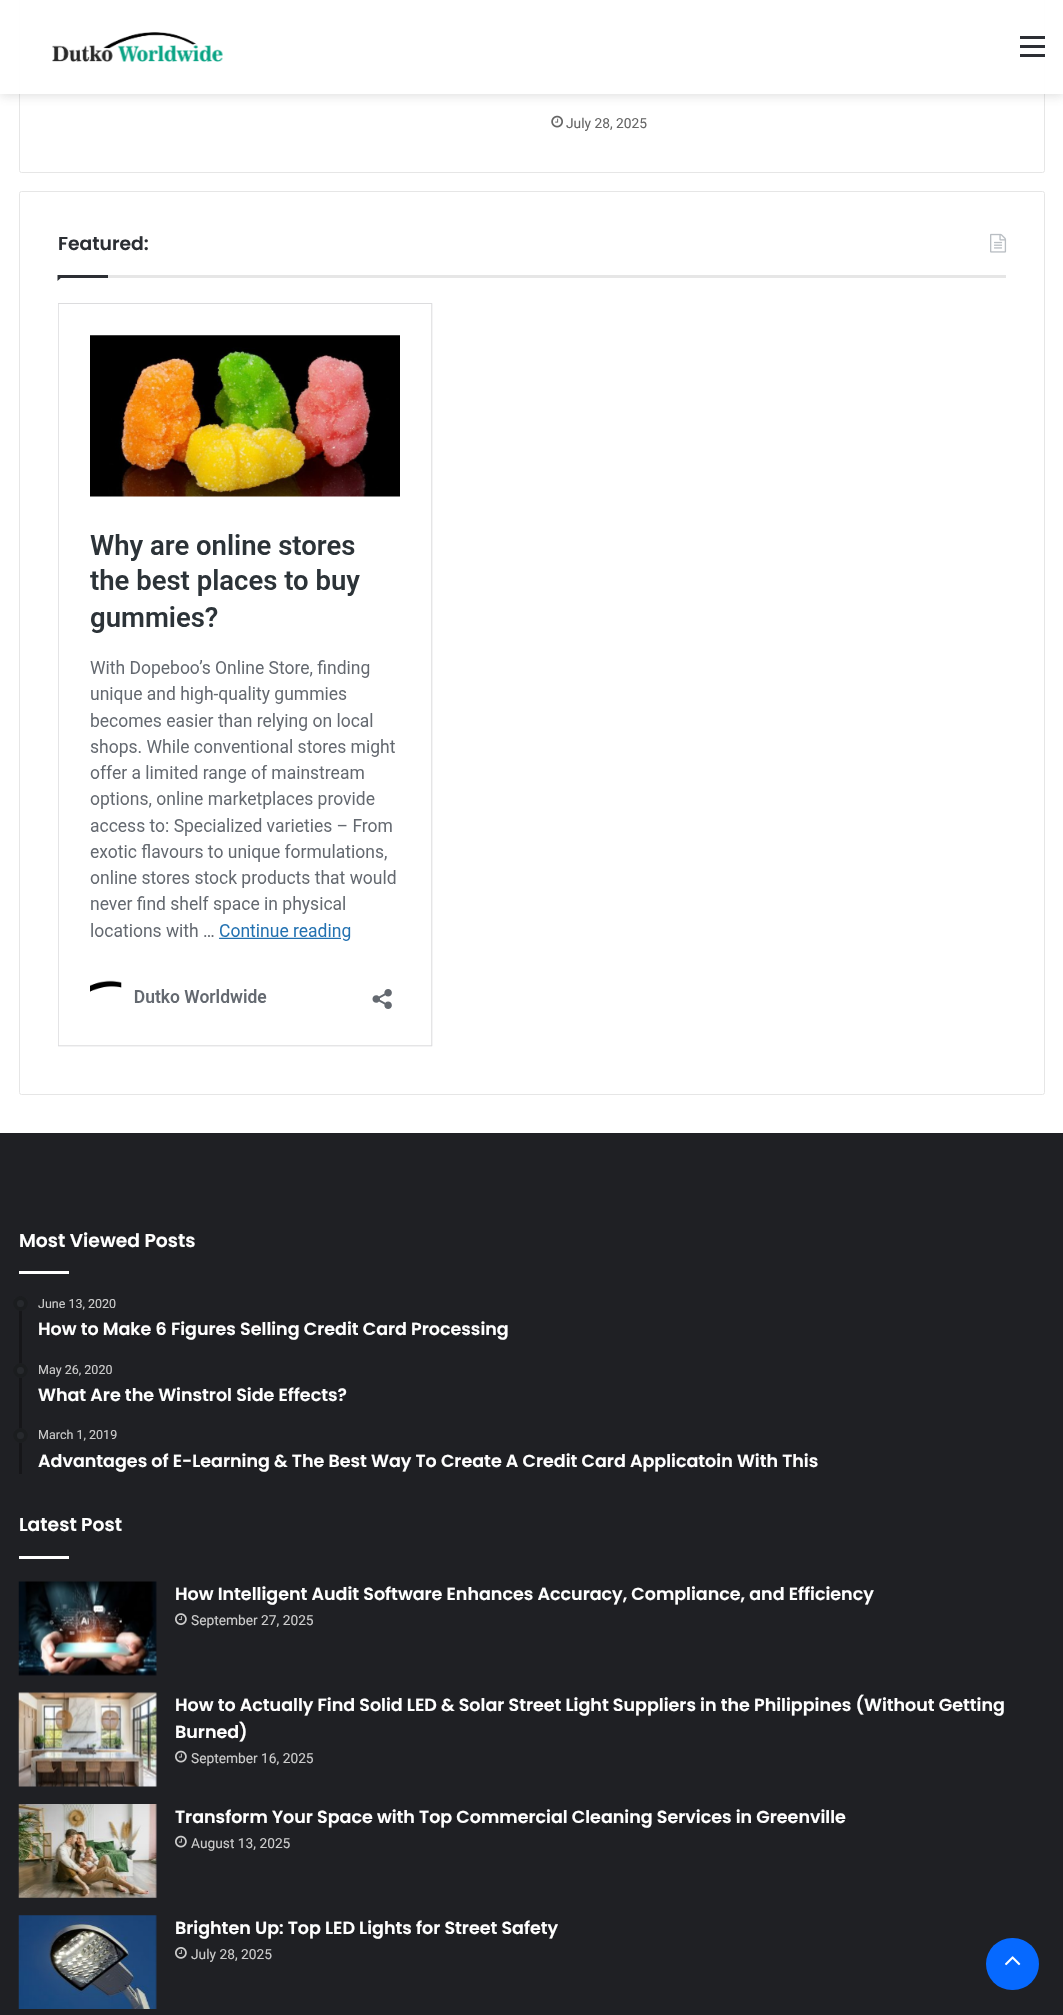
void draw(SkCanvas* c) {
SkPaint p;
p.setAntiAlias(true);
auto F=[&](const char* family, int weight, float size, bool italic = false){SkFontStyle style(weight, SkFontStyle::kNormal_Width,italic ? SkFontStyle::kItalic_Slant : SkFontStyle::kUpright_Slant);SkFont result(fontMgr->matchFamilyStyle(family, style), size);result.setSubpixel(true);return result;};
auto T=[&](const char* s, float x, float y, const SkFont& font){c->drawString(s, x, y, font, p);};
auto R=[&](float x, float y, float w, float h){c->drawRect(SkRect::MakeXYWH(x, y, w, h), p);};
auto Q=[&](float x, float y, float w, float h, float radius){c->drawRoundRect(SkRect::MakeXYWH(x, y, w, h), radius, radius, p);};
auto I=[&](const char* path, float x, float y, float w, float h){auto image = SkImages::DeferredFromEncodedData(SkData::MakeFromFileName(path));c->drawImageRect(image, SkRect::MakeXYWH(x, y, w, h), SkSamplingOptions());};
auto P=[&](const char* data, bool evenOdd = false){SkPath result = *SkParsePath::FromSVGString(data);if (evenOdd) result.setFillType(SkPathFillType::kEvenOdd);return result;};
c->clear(0xffffffff);
p.setStroke(true);
p.setStrokeWidth(1);
p.setColor(0xffe6e6e6);
c->drawRoundRect(SkRect::MakeXYWH(19.5,-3.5,1025,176),2,2,p);
I("2.png",58,45,12,13);
c->save();
c->clipPath(P("M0 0h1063v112h-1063zm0 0h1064v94h-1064z",true),true);
p.setStroke(false);
p.setColor(0x33636363);
p.setMaskFilter(SkMaskFilter::MakeBlur(kNormal_SkBlurStyle, 5));
c->drawRect(SkRect::MakeXYWH(0,3,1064,93),p);
p.setMaskFilter(nullptr);
c->restore();
p.setColor(0xf2ffffff);
R(0,0,1063,94);
I("1.png",52,32,171,30);
p.setColor(0xff2c2f34);
R(1020,45,25,3);
R(1020,36,25,3);
R(1020,54,25,3);
I("3.png",551,115,12,13);
auto f1 = F("Roboto",400,13.75);
p.setColor(0xff666666);
T("July 28, 2025",566,128,f1);
p.setStroke(true);
p.setColor(0xffe6e6e6);
c->drawRoundRect(SkRect::MakeXYWH(19.5,191.5,1025,903),2,2,p);
p.setStroke(false);
R(108,275,898,3);
auto f2 = F("Poppins",600,18.75);
p.setColor(0xff2c2f34);
T("Featured:",58,250,f2);
I("4.png",990,233,17,20);
c->drawPath(P("M57.5 275h6.5l-6.5 6z"),p);
R(58,275,50,3);
I("5.png",58,303,375,744);
p.setColor(0xff1f2024);
R(0,1133,1063,882);
p.setColor(0xffffffff);
T("Most Viewed Posts",19,1247,f2);
R(19,1271,50,3);
p.setColor(0xff161619);
R(19,1296,3,178);
p.setColor(0xff27292d);
c->drawCircle(20.5,1303.5,7.5,p);
p.setStroke(true);
p.setStrokeWidth(4);
p.setColor(0x4d000000);
c->drawCircle(20.5,1303.5,5.5,p);
auto f3 = F("Roboto",400,12.5);
p.setStroke(false);
p.setColor(0xffcccccc);
T("June 13, 2020",38,1308,f3);
auto f4 = F("Poppins",600,17.5);
p.setColor(0xffffffff);
T("How to Make 6 Figures Selling Credit Card Processing",38,1335,f4);
p.setColor(0xff27292d);
c->drawCircle(20.5,1370.5,7.5,p);
p.setStroke(true);
p.setColor(0x4d000000);
c->drawCircle(20.5,1370.5,5.5,p);
p.setStroke(false);
p.setColor(0xffcccccc);
T("May 26, 2020",38,1374,f3);
p.setColor(0xffffffff);
T("What Are the Winstrol Side Effects?",38,1401,f4);
p.setColor(0xff27292d);
c->drawCircle(20.5,1435.5,7.5,p);
p.setStroke(true);
p.setColor(0x4d000000);
c->drawCircle(20.5,1435.5,5.5,p);
p.setStroke(false);
p.setColor(0xffcccccc);
T("March 1, 2019",38,1439,f3);
p.setColor(0xffffffff);
T("Advantages of E-Learning & The Best Way To Create A Credit Card Applicatoin With This",38,1467,f4);
T("Latest Post",19,1531,f2);
R(19,1556,50,3);
I("6.png",18,1581,139,95);
T("How Intelligent Audit Software Enhances Accuracy, Compliance, and Efficiency",175,1600,f4);
I("7.png",175,1613,12,12);
p.setColor(0xffcccccc);
T("September 27, 2025",191,1625,f1);
I("8.png",18,1692,139,95);
p.setColor(0xffffffff);
T("How to Actually Find Solid LED & Solar Street Light Suppliers in the Philippines (Without Getting",175,1711,f4);
T("Burned)",175,1738,f4);
I("9.png",175,1750,12,13);
p.setColor(0xffcccccc);
T("September 16, 2025",191,1763,f1);
I("10.png",18,1804,139,94);
p.setColor(0xffffffff);
T("Transform Your Space with Top Commercial Cleaning Services in Greenville",175,1823,f4);
I("9.png",175,1835,12,13);
p.setColor(0xffcccccc);
T("August 13, 2025",191,1848,f1);
I("11.png",18,1915,139,94);
p.setColor(0xffffffff);
T("Brighten Up: Top LED Lights for Street Safety",175,1934,f4);
I("12.png",175,1947,12,12);
p.setColor(0xffcccccc);
T("July 28, 2025",191,1959,f1);
p.setColor(0xff0669ff);
Q(986,1938,53,52,26);
I("13.png",1005,1956,16,10);
}
